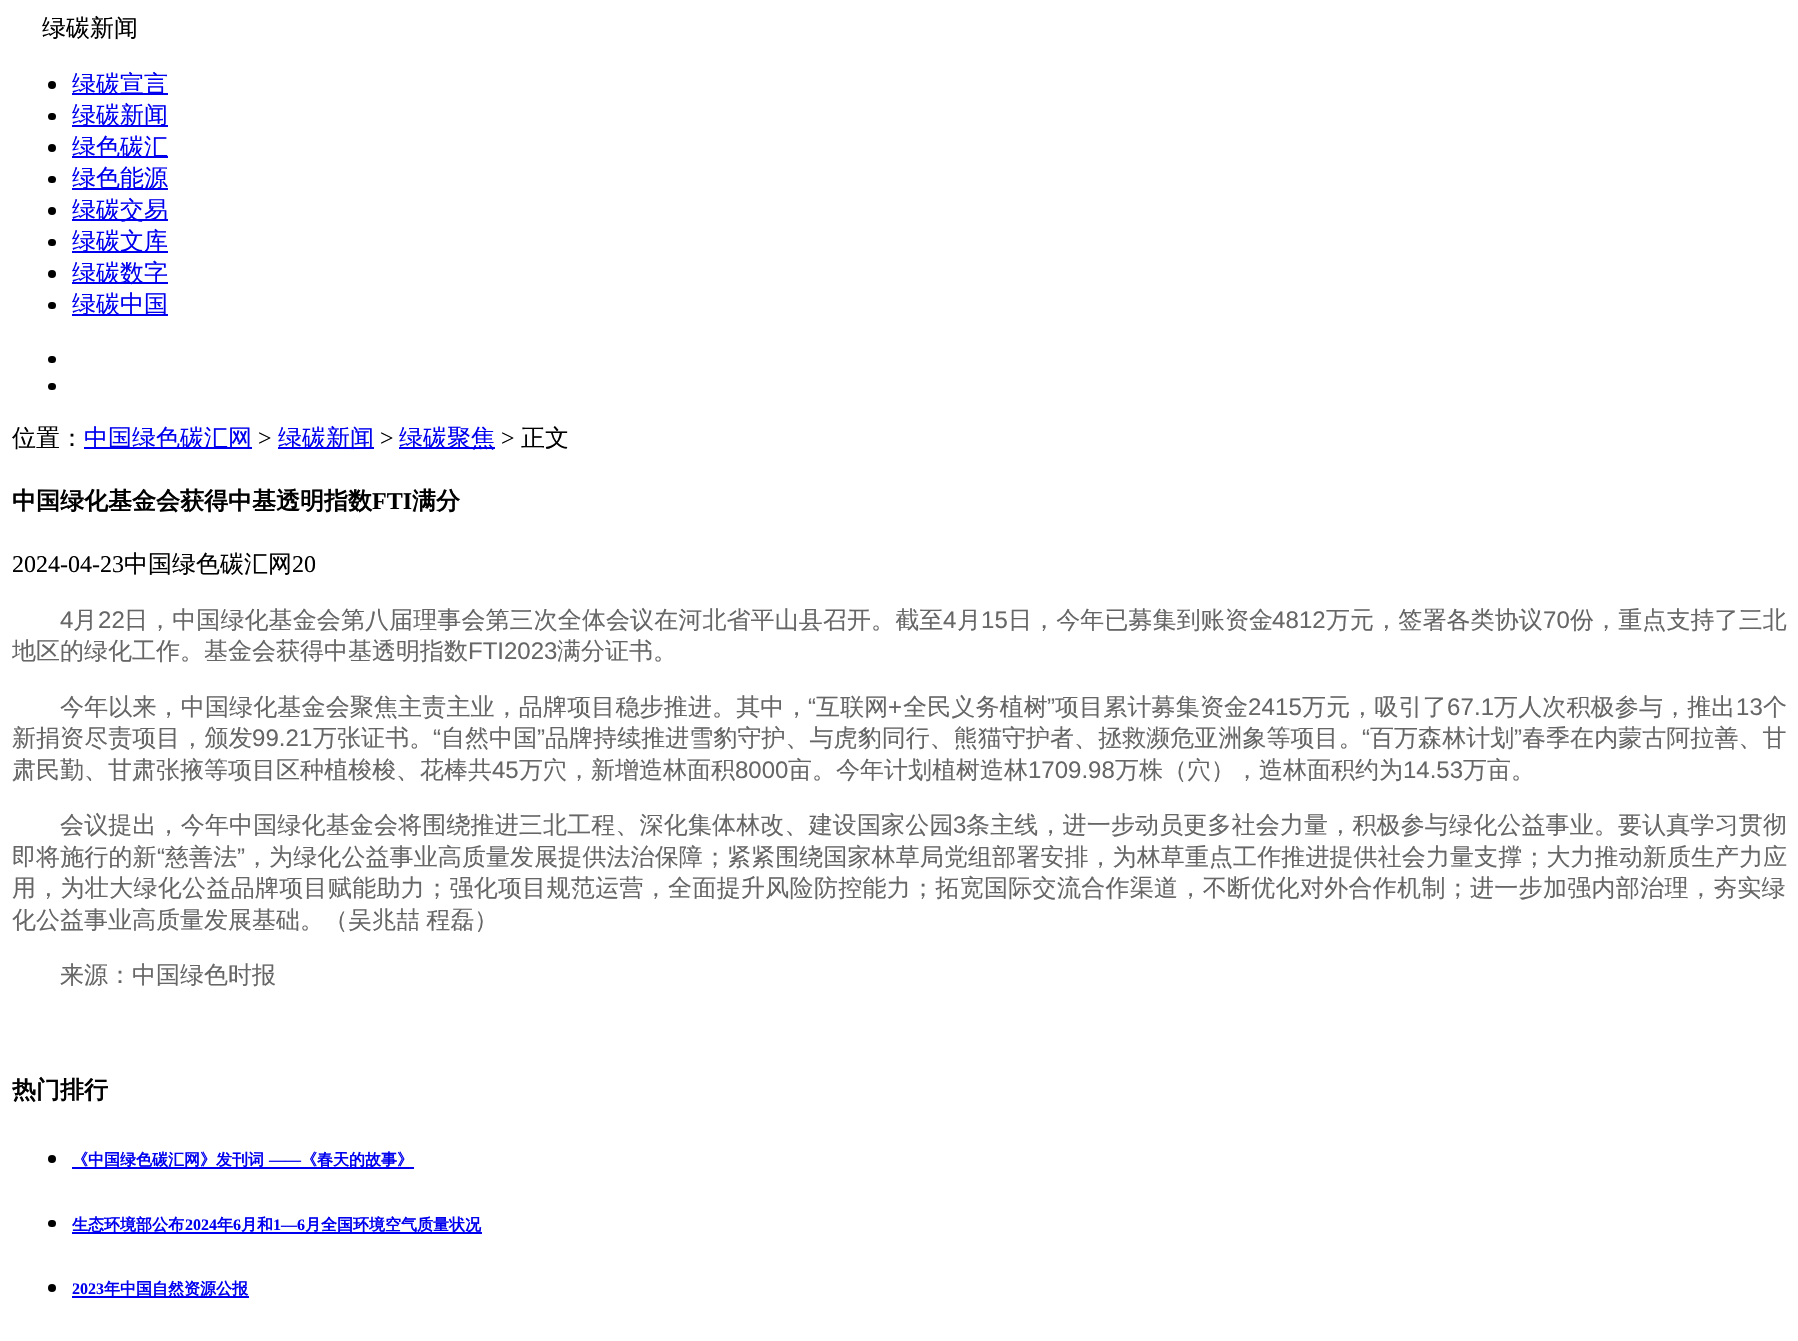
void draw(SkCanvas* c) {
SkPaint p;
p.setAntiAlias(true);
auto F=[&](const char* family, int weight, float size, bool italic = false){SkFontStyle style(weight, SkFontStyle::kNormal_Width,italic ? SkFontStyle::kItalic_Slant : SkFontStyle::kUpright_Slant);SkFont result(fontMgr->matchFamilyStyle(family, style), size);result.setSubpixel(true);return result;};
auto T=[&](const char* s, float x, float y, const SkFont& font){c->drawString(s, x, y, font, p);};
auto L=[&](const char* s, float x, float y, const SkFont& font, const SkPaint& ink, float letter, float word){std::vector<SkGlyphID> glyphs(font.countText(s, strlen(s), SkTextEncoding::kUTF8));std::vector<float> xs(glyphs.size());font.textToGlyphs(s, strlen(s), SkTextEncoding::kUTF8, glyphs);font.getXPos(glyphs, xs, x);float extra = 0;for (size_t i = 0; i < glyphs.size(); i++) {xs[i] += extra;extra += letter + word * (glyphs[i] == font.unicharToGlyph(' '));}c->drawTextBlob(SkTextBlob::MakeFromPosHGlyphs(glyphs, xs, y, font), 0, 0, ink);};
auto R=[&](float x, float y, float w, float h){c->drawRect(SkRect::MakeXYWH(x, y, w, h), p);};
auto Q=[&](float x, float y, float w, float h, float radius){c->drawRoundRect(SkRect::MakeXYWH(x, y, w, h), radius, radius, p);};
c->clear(0xffffffff);
auto f1 = F("WenQuanYi Zen Hei",500,24);
p.setColor(0xff000000);
T("绿碳新闻",42,36,f1);
c->drawCircle(52,85,4,p);
p.setColor(0xff0000ee);
R(72,93,96,2);
T("绿碳宣言",72,92,f1);
p.setColor(0xff000000);
Q(48,113,8,7,3.5);
p.setColor(0xff0000ee);
R(72,125,96,2);
T("绿碳新闻",72,123,f1);
p.setColor(0xff000000);
c->drawCircle(52,148,4,p);
p.setColor(0xff0000ee);
R(72,156,96,2);
T("绿色碳汇",72,155,f1);
p.setColor(0xff000000);
Q(48,176,8,7,3.5);
p.setColor(0xff0000ee);
R(72,188,96,2);
T("绿色能源",72,186,f1);
p.setColor(0xff000000);
c->drawCircle(52,211,4,p);
p.setColor(0xff0000ee);
R(72,219,96,2);
T("绿碳交易",72,218,f1);
p.setColor(0xff000000);
Q(48,239,8,7,3.5);
p.setColor(0xff0000ee);
R(72,251,96,2);
T("绿碳文库",72,249,f1);
p.setColor(0xff000000);
c->drawCircle(52,274,4,p);
p.setColor(0xff0000ee);
R(72,282,96,2);
T("绿碳数字",72,281,f1);
p.setColor(0xff000000);
Q(48,302,8,7,3.5);
p.setColor(0xff0000ee);
R(72,314,96,2);
T("绿碳中国",72,312,f1);
p.setColor(0xff000000);
Q(48,356,8,7,3.5);
Q(48,383,8,7,3.5);
T("位置：",12,446,f1);
p.setColor(0xff0000ee);
R(84,447,168,2);
T("中国绿色碳汇网",84,446,f1);
auto f2 = F("Liberation Serif",400,24);
p.setColor(0xff000000);
T(">",258,446,f2);
p.setColor(0xff0000ee);
R(278,447,96,2);
T("绿碳新闻",278,446,f1);
p.setColor(0xff000000);
T(">",380,446,f2);
p.setColor(0xff0000ee);
R(399,447,96,2);
T("绿碳聚焦",399,446,f1);
p.setColor(0xff000000);
T(">",501,446,f2);
T("正文",521,446,f1);
auto f3 = F("WenQuanYi Zen Hei",700,24);
T("中国绿化基金会获得中基透明指数",12,509,f3);
auto f4 = F("Liberation Serif",700,24);
T("FTI",372,509,f4);
T("满分",412,509,f3);
T("2024-04-23",12,572,f2);
T("中国绿色碳汇网",124,572,f1);
T("20",292,572,f2);
auto f5 = F("Liberation Sans",400,24);
p.setColor(0xff666666);
L("4",60,628,f5,p,.1,0);
L("月",73,628,f1,p,.1,0);
L("22",98,628,f5,p,.1,0);
L("日，中国绿化基金会第八届理事会第三次全体会议在河北省平山县召开。截至",124,628,f1,p,.1,0);
L("4",943,628,f5,p,.1,0);
L("月",957,628,f1,p,.1,0);
L("15",981,628,f5,p,.1,0);
L("日，今年已募集到账资金",1008,628,f1,p,.1,0);
L("4812",1272,628,f5,p,.1,0);
L("万元，签署各类协议",1326,628,f1,p,.1,0);
L("70",1543,628,f5,p,.1,0);
L("份，重点支持了三北",1570,628,f1,p,.1,0);
T("地区的绿化工作。基金会获得中基透明指数",12,659,f1);
T("FTI2023",468,659,f5);
T("满分证书。",557,659,f1);
L("今年以来，中国绿化基金会聚焦主责主业，品牌项目稳步推进。其中，",60,715,f1,p,.15,0);
L("“",808,715,f5,p,.15,0);
L("互联网",816,715,f1,p,.15,0);
L("+",888,715,f5,p,.15,0);
L("全民义务植树",903,715,f1,p,.15,0);
L("”",1047,715,f5,p,.15,0);
L("项目累计募集资金",1055,715,f1,p,.15,0);
L("2415",1248,715,f5,p,.15,0);
L("万元，吸引了",1302,715,f1,p,.15,0);
L("67.1",1447,715,f5,p,.15,0);
L("万人次积极参与，推出",1494,715,f1,p,.15,0);
L("13",1736,715,f5,p,.15,0);
L("个",1763,715,f1,p,.15,0);
L("新捐资尽责项目，颁发",12,746,f1,p,.05,0);
L("99.21",252,746,f5,p,.05,0);
L("万张证书。",313,746,f1,p,.05,0);
L("“",433,746,f5,p,.05,0);
L("自然中国",441,746,f1,p,.05,0);
L("”",537,746,f5,p,.05,0);
L("品牌持续推进雪豹守护、与虎豹同行、熊猫守护者、拯救濒危亚洲象等项目。",545,746,f1,p,.05,0);
L("“",1362,746,f5,p,.05,0);
L("百万森林计划",1370,746,f1,p,.05,0);
L("”",1514,746,f5,p,.05,0);
L("春季在内蒙古阿拉善、甘",1522,746,f1,p,.05,0);
T("肃民勤、甘肃张掖等项目区种植梭梭、花棒共",12,778,f1);
T("45",492,778,f5);
T("万穴，新增造林面积",519,778,f1);
T("8000",735,778,f5);
T("亩。今年计划植树造林",788,778,f1);
T("1709.98",1028,778,f5);
T("万株（穴），造林面积约为",1115,778,f1);
T("14.53",1403,778,f5);
T("万亩。",1463,778,f1);
L("会议提出，今年中国绿化基金会将围绕推进三北工程、深化集体林改、建设国家公园",60,833,f1,p,.15,0);
L("3",953,833,f5,p,.15,0);
L("条主线，进一步动员更多社会力量，积极参与绿化公益事业。要认真学习贯彻",966,833,f1,p,.15,0);
L("即将施行的新",12,865,f1,p,.1,0);
L("“",157,865,f5,p,.1,0);
L("慈善法",165,865,f1,p,.1,0);
L("”",237,865,f5,p,.1,0);
L("，为绿化公益事业高质量发展提供法治保障；紧紧围绕国家林草局党组部署安排，为林草重点工作推进提供社会力量支撑；大力推动新质生产力应",245,865,f1,p,.1,0);
L("用，为壮大绿化公益品牌项目赋能助力；强化项目规范运营，全面提升风险防控能力；拓宽国际交流合作渠道，不断优化对外合作机制；进一步加强内部治理，夯实绿",12,896,f1,p,.3,0);
L("化公益事业高质量发展基础。（吴兆喆 程磊）",12,928,f1,p,0,-1);
T("来源：中国绿色时报",60,983,f1);
p.setColor(0xff000000);
T("热门排行",12,1098,f3);
c->drawCircle(52,1159,4,p);
p.setColor(0xff0000ee);
R(72,1167,342,2);
auto f6 = F("WenQuanYi Zen Hei",700,16);
T("《中国绿色碳汇网》发刊词",72,1165,f6);
auto f7 = F("Liberation Serif",700,16);
T("——",269,1165,f7);
T("《春天的故事》",301,1165,f6);
p.setColor(0xff000000);
Q(48,1220,8,7,3.5);
p.setColor(0xff0000ee);
R(72,1232,410,2);
T("生态环境部公布",72,1230,f6);
T("2024",185,1230,f7);
T("年",217,1230,f6);
T("6",233,1230,f7);
T("月和",241,1230,f6);
T("1—6",273,1230,f7);
T("月全国环境空气质量状况",305,1230,f6);
p.setColor(0xff000000);
c->drawCircle(52,1288,4,p);
p.setColor(0xff0000ee);
T("2023",72,1294,f7);
R(72,1296,177,2);
T("年中国自然资源公报",104,1294,f6);
}
